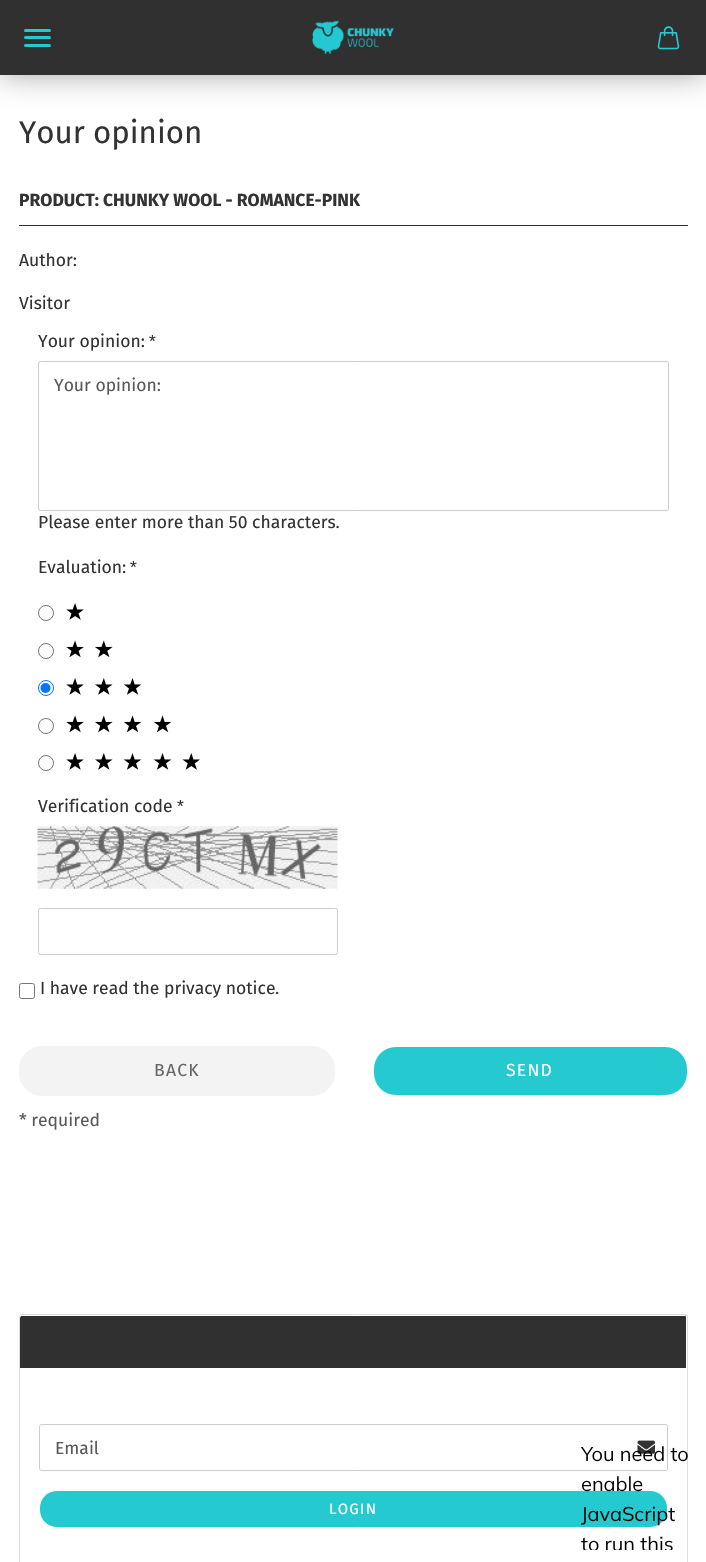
void draw(SkCanvas* c) {
SkPaint p;
p.setAntiAlias(true);
auto F=[&](const char* family, int weight, float size, bool italic = false){SkFontStyle style(weight, SkFontStyle::kNormal_Width,italic ? SkFontStyle::kItalic_Slant : SkFontStyle::kUpright_Slant);SkFont result(fontMgr->matchFamilyStyle(family, style), size);result.setSubpixel(true);return result;};
auto T=[&](const char* s, float x, float y, const SkFont& font){c->drawString(s, x, y, font, p);};
auto L=[&](const char* s, float x, float y, const SkFont& font, const SkPaint& ink, float letter, float word){std::vector<SkGlyphID> glyphs(font.countText(s, strlen(s), SkTextEncoding::kUTF8));std::vector<float> xs(glyphs.size());font.textToGlyphs(s, strlen(s), SkTextEncoding::kUTF8, glyphs);font.getXPos(glyphs, xs, x);float extra = 0;for (size_t i = 0; i < glyphs.size(); i++) {xs[i] += extra;extra += letter + word * (glyphs[i] == font.unicharToGlyph(' '));}c->drawTextBlob(SkTextBlob::MakeFromPosHGlyphs(glyphs, xs, y, font), 0, 0, ink);};
auto R=[&](float x, float y, float w, float h){c->drawRect(SkRect::MakeXYWH(x, y, w, h), p);};
auto Q=[&](float x, float y, float w, float h, float radius){c->drawRoundRect(SkRect::MakeXYWH(x, y, w, h), radius, radius, p);};
auto I=[&](const char* path, float x, float y, float w, float h){auto image = SkImages::DeferredFromEncodedData(SkData::MakeFromFileName(path));c->drawImageRect(image, SkRect::MakeXYWH(x, y, w, h), SkSamplingOptions());};
auto P=[&](const char* data, bool evenOdd = false){SkPath result = *SkParsePath::FromSVGString(data);if (evenOdd) result.setFillType(SkPathFillType::kEvenOdd);return result;};
c->clear(0xffffffff);
p.setColor(0x59000000);
p.setMaskFilter(SkMaskFilter::MakeBlur(kNormal_SkBlurStyle, 15.5));
c->drawRect(SkRect::MakeXYWH(0,0,706,75),p);
p.setMaskFilter(nullptr);
p.setColor(0xff303030);
R(0,0,706,75);
I("1.png",312,20,82,34);
I("2.png",657,26,23,24);
p.setColor(0xff25c9d0);
Q(24,36,27,3,1.5);
Q(24,29,27,3,1.5);
Q(24,44,27,3,1.5);
auto f1 = F("Fira Sans",400,31.25);
p.setColor(0xff333333);
T("Your opinion",19,143,f1);
p.setColor(0xff303030);
R(19,225,669,1);
auto f2 = F("Fira Sans",700,17.5);
p.setColor(0xff333333);
T("PRODUCT: CHUNKY WOOL - ROMANCE-PINK",19,206,f2);
auto f3 = F("Fira Sans",400,17.5);
T("Author:",19,266,f3);
T("Visitor",19,309,f3);
T("Your opinion:",38,347,f3);
auto f4 = F("Liberation Sans",400,17.5);
T("*",149,347,f4);
p.setStroke(true);
p.setStrokeWidth(1);
p.setColor(0xffcccccc);
c->drawRoundRect(SkRect::MakeXYWH(38.5,361.5,630,149),2,2,p);
p.setStroke(false);
p.setColor(0xff595959);
T("Your opinion:",54,391,f3);
p.setColor(0xff333333);
T("Please enter more than 50 characters.",38,528,f3);
T("Evaluation:",38,573,f3);
T("*",130,573,f4);
p.setStroke(true);
p.setColor(0xff767676);
c->drawCircle(46,613,7.5,p);
I("3.png",66,603,18,17);
c->drawCircle(46,651,7.5,p);
I("4.png",66,640,18,18);
I("5.png",95,640,18,18);
p.setColor(0xff0075ff);
c->drawCircle(46,688,7.5,p);
p.setStroke(false);
c->drawCircle(45.5,688,5,p);
I("3.png",66,678,18,17);
I("6.png",95,678,18,17);
I("7.png",123,678,19,17);
p.setStroke(true);
p.setColor(0xff767676);
c->drawCircle(46,726,7.5,p);
I("4.png",66,715,18,18);
I("5.png",95,715,18,18);
I("8.png",124,715,18,18);
I("8.png",154,715,18,18);
c->drawCircle(46,763,7.5,p);
I("3.png",66,753,18,17);
I("6.png",95,753,18,17);
I("7.png",123,753,19,17);
I("7.png",153,753,19,17);
I("9.png",182,753,18,17);
p.setStroke(false);
p.setColor(0xff333333);
T("Verification code",38,812,f3);
T("*",177,812,f4);
I("10.png",37,826,301,63);
p.setStroke(true);
p.setColor(0xffcccccc);
c->drawRoundRect(SkRect::MakeXYWH(38.5,908.5,299,46),2,2,p);
p.setColor(0xff767676);
c->drawRoundRect(SkRect::MakeXYWH(19.5,983.5,15,15),2,2,p);
p.setStroke(false);
p.setColor(0xff333333);
T("I have read the",40,994,f3);
T("privacy notice",164,994,f3);
T(".",275,994,f3);
p.setColor(0xfff3f3f3);
c->drawRoundRect(SkRect::MakeXYWH(19.5,1046.5,315,49),22.5,22.5,p);
p.setStroke(true);
c->drawRoundRect(SkRect::MakeXYWH(19.5,1046.5,315,49),22.5,22.5,p);
p.setStroke(false);
p.setColor(0xff666666);
L("BACK",154,1076,f3,p,1.25,0);
p.setColor(0xff25c9d0);
c->drawRoundRect(SkRect::MakeXYWH(373.5,1046.5,314,49),22.5,22.5,p);
p.setStroke(true);
p.setColor(0xffffffff);
c->drawRoundRect(SkRect::MakeXYWH(373.5,1046.5,314,49),22.5,22.5,p);
p.setStroke(false);
L("SEND",506,1076,f3,p,1.25,0);
p.setColor(0xff595959);
T("* required",19,1126,f3);
p.setStroke(true);
p.setColor(0xffdddddd);
c->drawRoundRect(SkRect::MakeXYWH(19.5,1314.5,668,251),2,2,p);
p.setStroke(false);
p.setColor(0xff303030);
c->drawPath(P("M21 1315h664c.5 0 1 .5 1 1v52h-666v-52c0-.5 .5-1 1-1z"),p);
p.setColor(0xffffffff);
c->drawPath(P("M21 1316h664c1 0 1 1 1 2c0-1 0-3-1-3h-664h-1v3z"),p);
p.setStroke(true);
p.setColor(0xffcccccc);
c->drawRoundRect(SkRect::MakeXYWH(39.5,1424.5,628,46),2,2,p);
p.setStroke(false);
p.setColor(0xff595959);
T("Email",55,1454,f3);
I("11.png",637,1440,18,14);
p.setColor(0xff25c9d0);
c->drawRoundRect(SkRect::MakeXYWH(39.5,1490.5,628,37),17.5,17.5,p);
p.setStroke(true);
p.setColor(0xffffffff);
c->drawRoundRect(SkRect::MakeXYWH(39.5,1490.5,628,37),17.5,17.5,p);
auto f5 = F("Fira Sans",400,15);
p.setStroke(false);
L("LOGIN",329,1514,f5,p,1.25,0);
I("12.png",581,1446,107,104);
}
